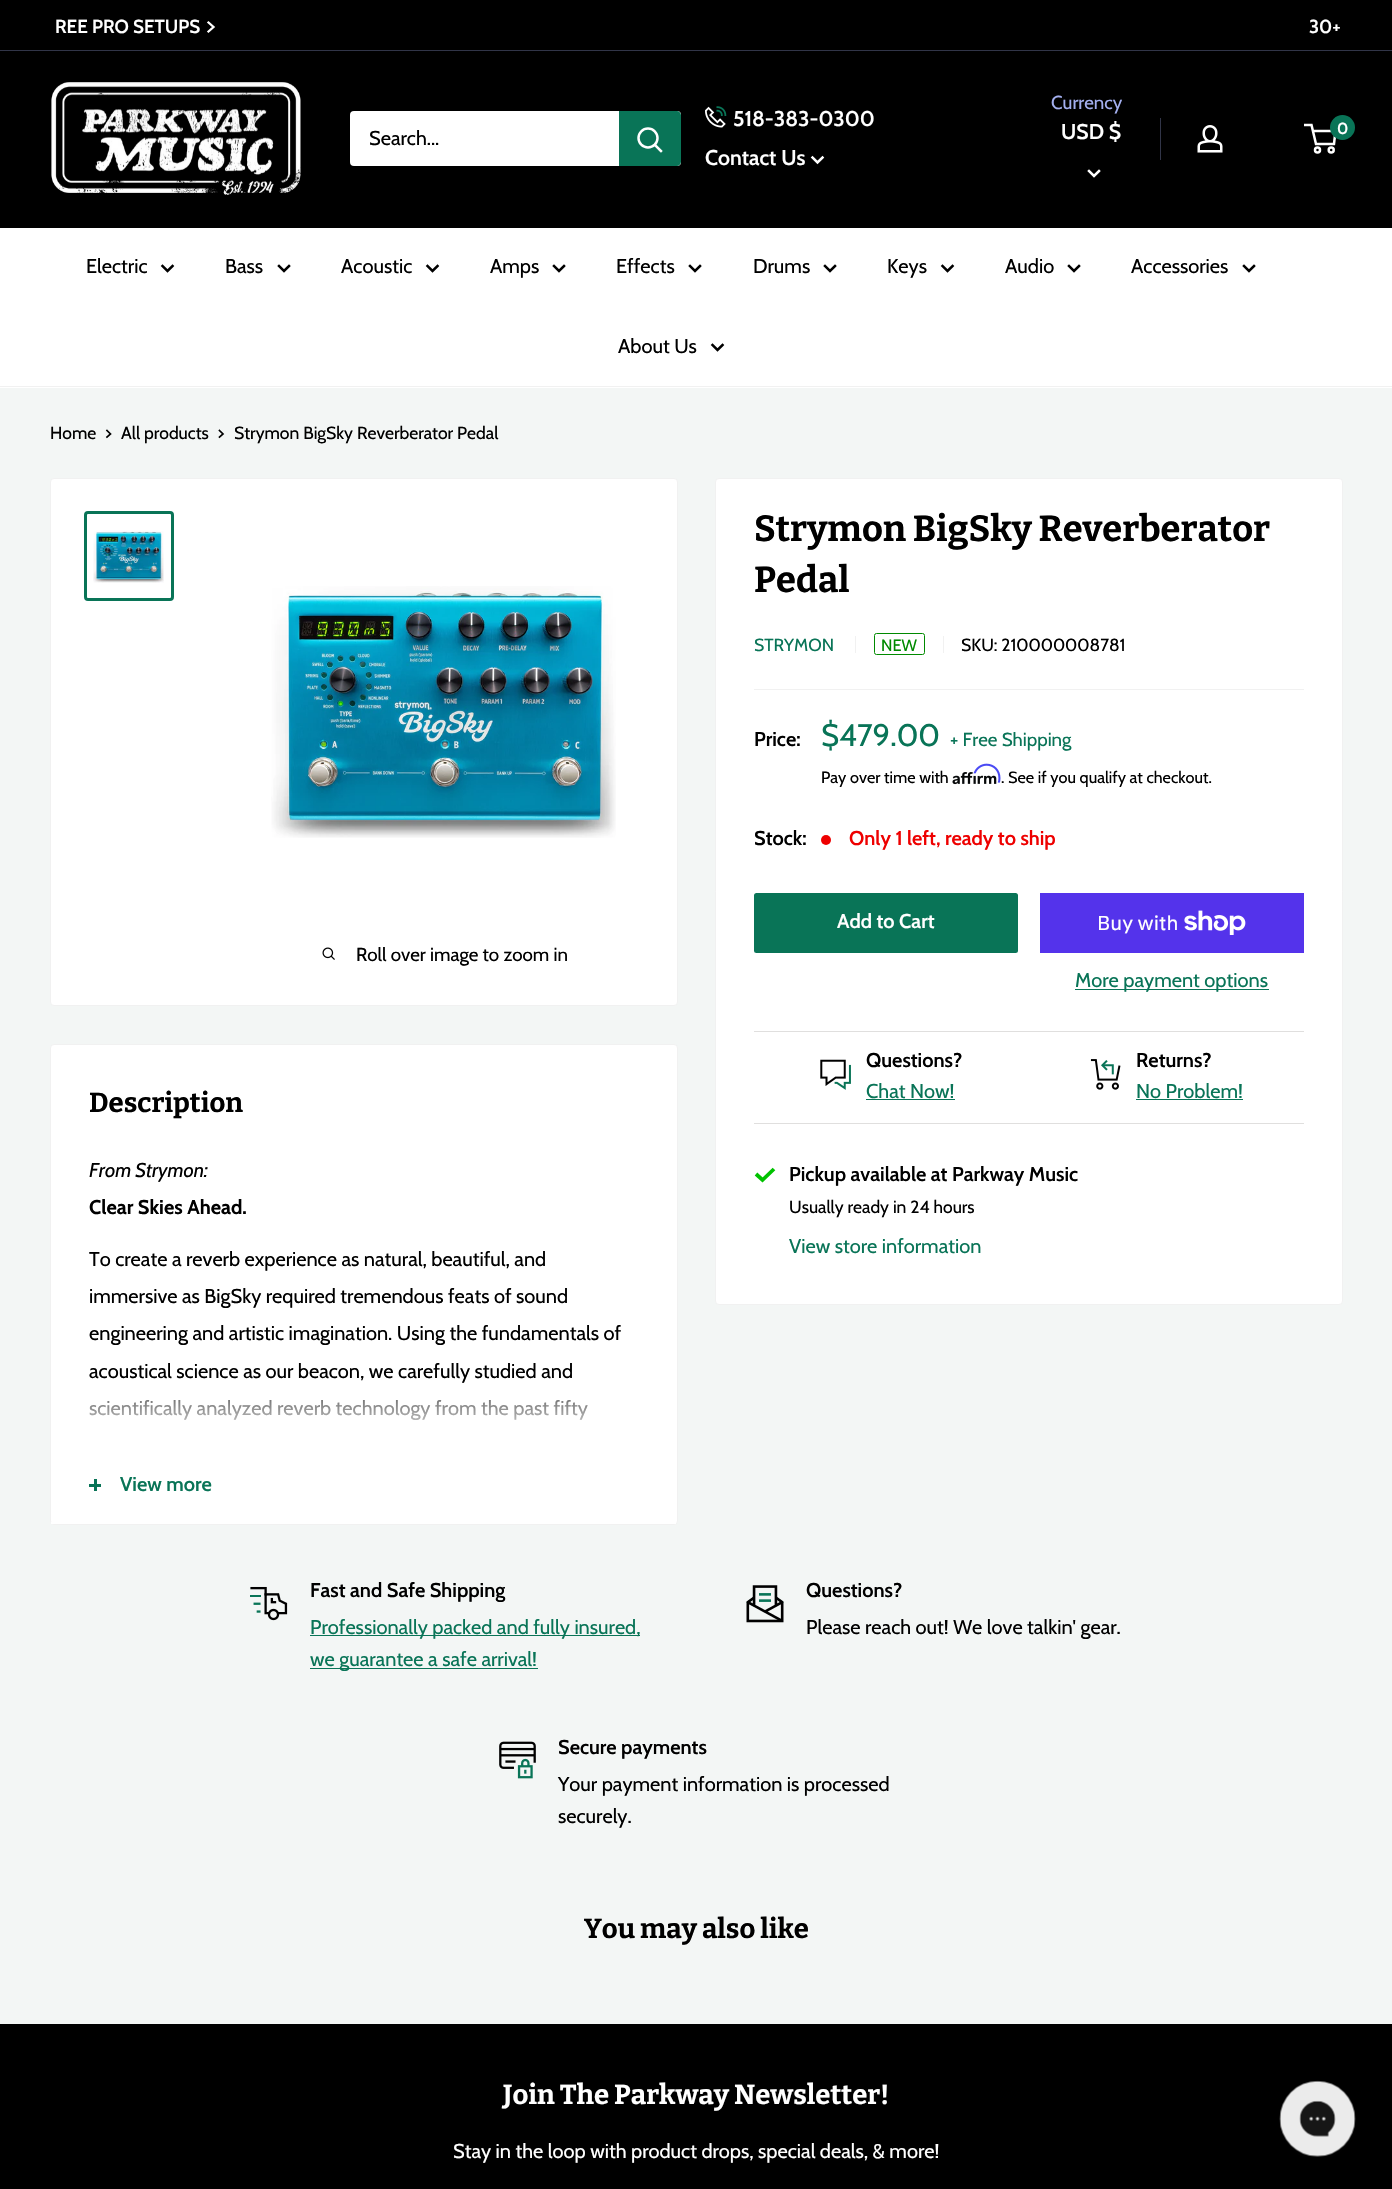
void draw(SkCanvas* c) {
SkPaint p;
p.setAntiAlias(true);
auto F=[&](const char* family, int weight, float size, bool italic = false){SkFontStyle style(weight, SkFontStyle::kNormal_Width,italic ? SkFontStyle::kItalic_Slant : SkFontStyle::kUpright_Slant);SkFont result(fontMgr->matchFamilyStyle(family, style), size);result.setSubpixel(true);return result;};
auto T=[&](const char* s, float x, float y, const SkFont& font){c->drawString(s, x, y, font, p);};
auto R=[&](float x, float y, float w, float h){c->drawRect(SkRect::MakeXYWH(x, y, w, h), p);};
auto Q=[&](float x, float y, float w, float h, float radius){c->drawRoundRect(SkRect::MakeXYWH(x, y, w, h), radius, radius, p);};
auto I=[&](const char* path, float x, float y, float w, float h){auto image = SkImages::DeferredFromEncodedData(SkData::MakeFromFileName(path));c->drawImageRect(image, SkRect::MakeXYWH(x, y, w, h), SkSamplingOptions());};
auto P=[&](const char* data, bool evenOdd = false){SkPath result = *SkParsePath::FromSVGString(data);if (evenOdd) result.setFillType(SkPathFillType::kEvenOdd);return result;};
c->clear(0xfff3f6f5);
p.setColor(0xff000000);
R(0,0,1392,50);
p.setColor(0xff313548);
R(0,50,1392,1);
auto f1 = F("Cabin",600,18.75);
p.setColor(0xffffffff);
T("REE PRO SETUPS",55,33,f1);
p.setStroke(true);
p.setStrokeWidth(2.3);
p.setStrokeCap(SkPaint::kSquare_Cap);
c->drawPath(P("M208.5 22.5l5 4.5l-5 4.5"),p);
p.setStroke(false);
T("30+",1309,33,f1);
p.setColor(0xff000000);
R(0,51,1392,177);
I("1.png",51,82,250,113);
p.setColor(0xffffffff);
Q(350,111,331,55,4);
auto f2 = F("Cabin",400,20);
p.setColor(0xff000000);
T("Search...",369,145,f2);
p.setColor(0xff097457);
c->drawPath(P("M619 111h58c2 0 4 2 4 4v47c0 2-2 4-4 4h-58z"),p);
p.setStroke(true);
p.setStrokeWidth(2.5);
p.setColor(0xffffffff);
c->drawPath(P("M661 151l-6-6"),p);
p.setStrokeCap(SkPaint::kButt_Cap);
c->drawCircle(648,138,9.5,p);
I("2.png",705,106,22,22);
auto f3 = F("Cabin",600,21.25);
p.setStroke(false);
T("518-383-0300",733,126,f3);
T("Contact Us",705,165,f3);
p.setStroke(true);
p.setStrokeCap(SkPaint::kSquare_Cap);
c->drawPath(P("M822.5 157.5l-5 5l-5-5"),p);
auto f4 = F("Cabin",400,18.75);
p.setStroke(false);
p.setColor(0xffa3afef);
T("Currency",1051,109,f4);
p.setColor(0xffffffff);
T("USD $",1061,139,f3);
p.setStroke(true);
c->drawPath(P("M1099 171l-5 5l-5-5"),p);
p.setStroke(false);
p.setColor(0xff313548);
R(1160,118,1,42);
I("3.png",1197,125,26,28);
p.setStroke(true);
p.setStrokeCap(SkPaint::kButt_Cap);
p.setColor(0xffffffff);
c->drawCircle(1317.5,150,2.5,p);
c->drawCircle(1331.2,150,2.5,p);
c->drawPath(P("M1313 131h22.5l-1.5 13h-18l-4.5-19h-7.5"),p);
p.setStroke(false);
p.setColor(0xff097457);
c->drawCircle(1342.5,127.5,12.5,p);
auto f5 = F("Cabin",600,16);
p.setColor(0xffffffff);
T("0",1337,134,f5);
R(0,228,1392,160);
p.setColor(0xfff1f1f1);
R(0,386,1392,1);
p.setColor(0xff000000);
T("Electric",86,273,f2);
p.setStroke(true);
p.setStrokeCap(SkPaint::kSquare_Cap);
c->drawPath(P("M172.5 266l-5 5l-5-5"),p);
p.setStroke(false);
T("Bass",225,273,f2);
p.setStroke(true);
c->drawPath(P("M289 266l-5 5l-5-5"),p);
p.setStroke(false);
T("Acoustic",341,273,f2);
p.setStroke(true);
c->drawPath(P("M437.5 266l-5 5l-5-5"),p);
p.setStroke(false);
T("Amps",490,273,f2);
p.setStroke(true);
c->drawPath(P("M564 266l-5 5l-5-5"),p);
p.setStroke(false);
T("Effects",616,273,f2);
p.setStroke(true);
c->drawPath(P("M700 266l-5 5l-5-5"),p);
p.setStroke(false);
T("Drums",753,273,f2);
p.setStroke(true);
c->drawPath(P("M835 266l-5 5l-5-5"),p);
p.setStroke(false);
T("Keys",887,273,f2);
p.setStroke(true);
c->drawPath(P("M952.5 266l-5 5l-5-5"),p);
p.setStroke(false);
T("Audio",1005,273,f2);
p.setStroke(true);
c->drawPath(P("M1079 266l-5 5l-5-5"),p);
p.setStroke(false);
T("Accessories",1131,273,f2);
p.setStroke(true);
c->drawPath(P("M1254 266l-5 5l-5-5"),p);
p.setStroke(false);
T("About Us",618,353,f2);
p.setStroke(true);
c->drawPath(P("M722.5 345l-5 5l-5-5"),p);
auto f6 = F("Cabin",400,17.5);
p.setStroke(false);
T("Home",50,439,f6);
p.setStroke(true);
p.setStrokeWidth(1.7);
c->drawPath(P("M107 430.5l3.5 3.5l-3.5 3"),p);
p.setStroke(false);
T("All products",121,439,f6);
p.setStroke(true);
c->drawPath(P("M219.5 430.5l3.5 3.5l-3.5 3"),p);
p.setStroke(false);
T("Strymon BigSky Reverberator Pedal",234,439,f6);
p.setColor(0xffffffff);
c->drawRoundRect(SkRect::MakeXYWH(50.5,478.5,627,527),3.5,3.5,p);
p.setStroke(true);
p.setStrokeWidth(1);
p.setStrokeCap(SkPaint::kButt_Cap);
p.setColor(0xfff1f1f1);
c->drawRoundRect(SkRect::MakeXYWH(50.5,478.5,627,527),3.5,3.5,p);
p.setStrokeWidth(3);
p.setColor(0xff097457);
c->drawRoundRect(SkRect::MakeXYWH(85.5,512.5,87,87),2.5,2.5,p);
I("4.png",93,530,71,53);
I("5.png",271,586,345,252);
I("6.png",322,947,13,13);
p.setStroke(false);
p.setColor(0xff000000);
T("Roll over image to zoom in",356,961,f4);
p.setColor(0xffffffff);
c->drawRoundRect(SkRect::MakeXYWH(715.5,478.5,627,826),3.5,3.5,p);
p.setStroke(true);
p.setStrokeWidth(1);
p.setColor(0xfff1f1f1);
c->drawRoundRect(SkRect::MakeXYWH(715.5,478.5,627,826),3.5,3.5,p);
auto f7 = F("Bitter",700,36.25);
p.setStroke(false);
p.setColor(0xff000000);
T("Strymon BigSky Reverberator",754,541,f7);
T("Pedal",754,592,f7);
p.setColor(0xff097457);
T("STRYMON",754,651,f6);
p.setColor(0xfff1f1f1);
R(855,636,1,17);
p.setStroke(true);
p.setColor(0xff008a00);
c->drawRoundRect(SkRect::MakeXYWH(874.5,633.5,50,21),2,2,p);
auto f8 = F("Cabin",400,16.25);
p.setStroke(false);
T("NEW",881,651,f8);
p.setColor(0xfff1f1f1);
R(943,636,1,17);
p.setColor(0xff000000);
T("SKU: 210000008781",961,651,f6);
p.setColor(0xfff1f1f1);
R(754,689,550,1);
auto f9 = F("Cabin",600,20);
p.setColor(0xff000000);
T("Price:",754,746,f9);
auto f10 = F("Cabin",400,31);
p.setColor(0xff097457);
T("$479.00",821,746,f10);
T("+ Free Shipping",950,746,f4);
p.setColor(0xff000000);
T("Pay over time with",821,783,f8);
I("8.png",952,772,45,13);
I("7.png",973,763,28,20);
T(". See if you qualify at checkout.",1001,783,f8);
T("Stock:",754,845,f9);
p.setColor(0xffee0000);
c->drawCircle(826,840,5,p);
T("Only 1 left, ready to ship",849,845,f9);
p.setColor(0xff097457);
Q(754,893,264,60,2.5);
p.setColor(0xffffffff);
T("Add to Cart",837,928,f9);
p.setColor(0xff5433eb);
R(1040,893,264,60);
auto f11 = F("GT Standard",400,20);
p.setColor(0xffffffff);
T("Buy with",1097,930,f11);
I("9.png",1184,910,62,25);
p.setColor(0xff097457);
R(1075,989,194,1);
T("More payment options",1075,987,f2);
p.setColor(0xffe0dfde);
R(754,1031,550,1);
R(754,1123,550,1);
I("10.png",820,1059,31,31);
p.setColor(0xff000000);
T("Questions?",866,1067,f9);
p.setColor(0xff097457);
T("Chat Now!",866,1098,f2);
R(866,1099,89,1);
I("11.png",1090,1059,31,31);
p.setColor(0xff000000);
T("Returns?",1136,1067,f9);
p.setColor(0xff097457);
T("No Problem!",1136,1098,f2);
R(1136,1099,107,1);
p.setStroke(true);
p.setStrokeWidth(3.8);
p.setColor(0xff00c200);
c->drawPath(P("M756 1174l6.5 6l11.5-11"),p);
p.setStroke(false);
p.setColor(0xff000000);
T("Pickup available at Parkway Music",789,1181,f9);
T("Usually ready in 24 hours",789,1213,f6);
p.setColor(0xff097457);
T("View store information",789,1253,f2);
p.setColor(0xffffffff);
c->drawRoundRect(SkRect::MakeXYWH(50.5,1044.5,627,480),3.5,3.5,p);
p.setStroke(true);
p.setStrokeWidth(1);
p.setColor(0xfff1f1f1);
c->drawRoundRect(SkRect::MakeXYWH(50.5,1044.5,627,480),3.5,3.5,p);
auto f12 = F("Bitter",700,27.5);
p.setStroke(false);
p.setColor(0xff000000);
T("Description",89,1112,f12);
auto f13 = F("Cabin",400,20,true);
T("From Strymon:",89,1177,f13);
auto f14 = F("Cabin",700,20);
T("Clear Skies Ahead.",89,1214,f14);
T("To create a reverb experience as natural, beautiful, and",89,1266,f2);
T("immersive as BigSky required tremendous feats of sound",89,1303,f2);
T("engineering and artistic imagination. Using the fundamentals of",89,1340,f2);
T("acoustical science as our beacon, we carefully studied and",89,1378,f2);
T("scientifically analyzed reverb technology from the past fifty",89,1415,f2);
p.setColor(0xffffffff);
R(51,1522,625,2);
{
const SkColor colors[] = {0x00ffffff,0x66ffffff,0xffffffff};
const float stops[] = {0,.15,1};
const SkPoint ends[] = {{364,1384}, {364,1446}};
p.setShader(SkGradientShader::MakeLinear(ends, colors, stops, 3, SkTileMode::kClamp));
p.setAlpha(255);
}
R(89,1400,499,20);
p.setShader(nullptr);
p.setColor(0xff097457);
R(94,1479,3,12);
R(89,1484,12,3);
T("View more",120,1491,f9);
I("12.png",250,1586,38,35);
p.setColor(0xff000000);
T("Fast and Safe Shipping",310,1597,f9);
p.setColor(0xff097457);
R(310,1635,330,1);
T("Professionally packed and fully insured,",310,1634,f2);
R(310,1668,228,1);
T("we guarantee a safe arrival!",310,1666,f2);
I("13.png",746,1585,38,38);
p.setColor(0xff000000);
T("Questions?",806,1597,f9);
T("Please reach out! We love talkin' gear.",806,1634,f2);
I("14.png",499,1741,37,38);
T("Secure payments",558,1754,f9);
T("Your payment information is processed",558,1791,f2);
T("securely.",558,1823,f2);
T("You may also like",584,1938,f12);
R(0,2024,1392,165);
p.setColor(0xffffffff);
T("Join The Parkway Newsletter!",503,2104,f12);
T("Stay in the loop with product drops, special deals, & more!",453,2158,f2);
I("15.png",1279,2080,77,77);
}
